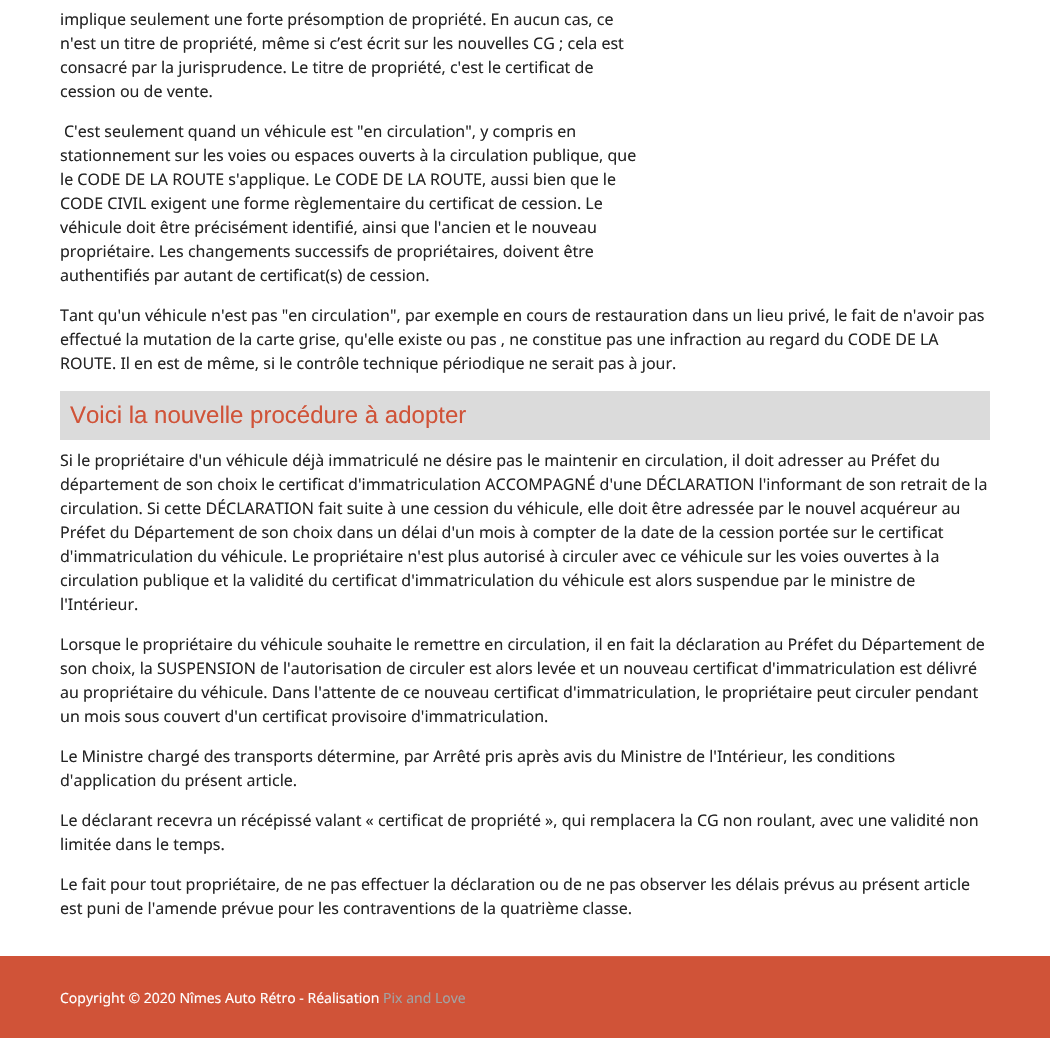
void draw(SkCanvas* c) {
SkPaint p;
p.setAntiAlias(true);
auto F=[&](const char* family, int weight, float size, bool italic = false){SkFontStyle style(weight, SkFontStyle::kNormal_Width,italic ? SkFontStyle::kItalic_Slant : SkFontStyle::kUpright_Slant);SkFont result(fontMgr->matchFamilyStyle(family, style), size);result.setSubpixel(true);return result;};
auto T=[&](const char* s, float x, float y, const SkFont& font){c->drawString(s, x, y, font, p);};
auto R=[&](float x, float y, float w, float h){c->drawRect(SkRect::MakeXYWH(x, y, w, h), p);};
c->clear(0xffffffff);
auto f1 = F("Noto Sans",400,16);
p.setColor(0xff252525);
T("implique seulement une forte présomption de propriété. En aucun cas, ce",60,25,f1);
T("n'est un titre de propriété, même si c’est écrit sur les nouvelles CG ; cela est",60,49,f1);
T("consacré par la jurisprudence. Le titre de propriété, c'est le certificat de",60,73,f1);
T("cession ou de vente.",60,97,f1);
T("C'est seulement quand un véhicule est \"en circulation\", y compris en",64,137,f1);
T("stationnement sur les voies ou espaces ouverts à la circulation publique, que",60,161,f1);
T("le CODE DE LA ROUTE s'applique. Le CODE DE LA ROUTE, aussi bien que le",60,185,f1);
T("CODE CIVIL exigent une forme règlementaire du certificat de cession. Le",60,209,f1);
T("véhicule doit être précisément identifié, ainsi que l'ancien et le nouveau",60,233,f1);
T("propriétaire. Les changements successifs de propriétaires, doivent être",60,257,f1);
T("authentifiés par autant de certificat(s) de cession.",60,281,f1);
T("Tant qu'un véhicule n'est pas \"en circulation\", par exemple en cours de restauration dans un lieu privé, le fait de n'avoir pas",60,321,f1);
T("effectué la mutation de la carte grise, qu'elle existe ou pas , ne constitue pas une infraction au regard du CODE DE LA",60,345,f1);
T("ROUTE. Il en est de même, si le contrôle technique périodique ne serait pas à jour.",60,369,f1);
p.setColor(0xffdbdbdb);
R(60,391,930,49);
auto f2 = F("Liberation Sans",400,24);
p.setColor(0xffd05338);
T("Voici la nouvelle procédure à adopter",70,423,f2);
p.setColor(0xff252525);
T("Si le propriétaire d'un véhicule déjà immatriculé ne désire pas le maintenir en circulation, il doit adresser au Préfet du",60,466,f1);
T("département de son choix le certificat d'immatriculation ACCOMPAGNÉ d'une DÉCLARATION l'informant de son retrait de la",60,490,f1);
T("circulation. Si cette DÉCLARATION fait suite à une cession du véhicule, elle doit être adressée par le nouvel acquéreur au",60,514,f1);
T("Préfet du Département de son choix dans un délai d'un mois à compter de la date de la cession portée sur le certificat",60,538,f1);
T("d'immatriculation du véhicule. Le propriétaire n'est plus autorisé à circuler avec ce véhicule sur les voies ouvertes à la",60,562,f1);
T("circulation publique et la validité du certificat d'immatriculation du véhicule est alors suspendue par le ministre de",60,586,f1);
T("l'Intérieur.",60,610,f1);
T("Lorsque le propriétaire du véhicule souhaite le remettre en circulation, il en fait la déclaration au Préfet du Département de",60,650,f1);
T("son choix, la SUSPENSION de l'autorisation de circuler est alors levée et un nouveau certificat d'immatriculation est délivré",60,674,f1);
T("au propriétaire du véhicule. Dans l'attente de ce nouveau certificat d'immatriculation, le propriétaire peut circuler pendant",60,698,f1);
T("un mois sous couvert d'un certificat provisoire d'immatriculation.",60,722,f1);
T("Le Ministre chargé des transports détermine, par Arrêté pris après avis du Ministre de l'Intérieur, les conditions",60,762,f1);
T("d'application du présent article.",60,786,f1);
T("Le déclarant recevra un récépissé valant « certificat de propriété », qui remplacera la CG non roulant, avec une validité non",60,826,f1);
T("limitée dans le temps.",60,850,f1);
T("Le fait pour tout propriétaire, de ne pas effectuer la déclaration ou de ne pas observer les délais prévus au présent article",60,890,f1);
T("est puni de l'amende prévue pour les contraventions de la quatrième classe.",60,914,f1);
p.setColor(0xffd05338);
R(0,956,1050,82);
p.setColor(0xffd5644c);
R(60,956,930,1);
auto f3 = F("Noto Sans",400,14);
p.setColor(0xffffffff);
T("Copyright © 2020 Nîmes Auto Rétro - Réalisation",60,1003,f3);
p.setColor(0xffa2a2a2);
T("Pix and Love",383,1003,f3);
}
